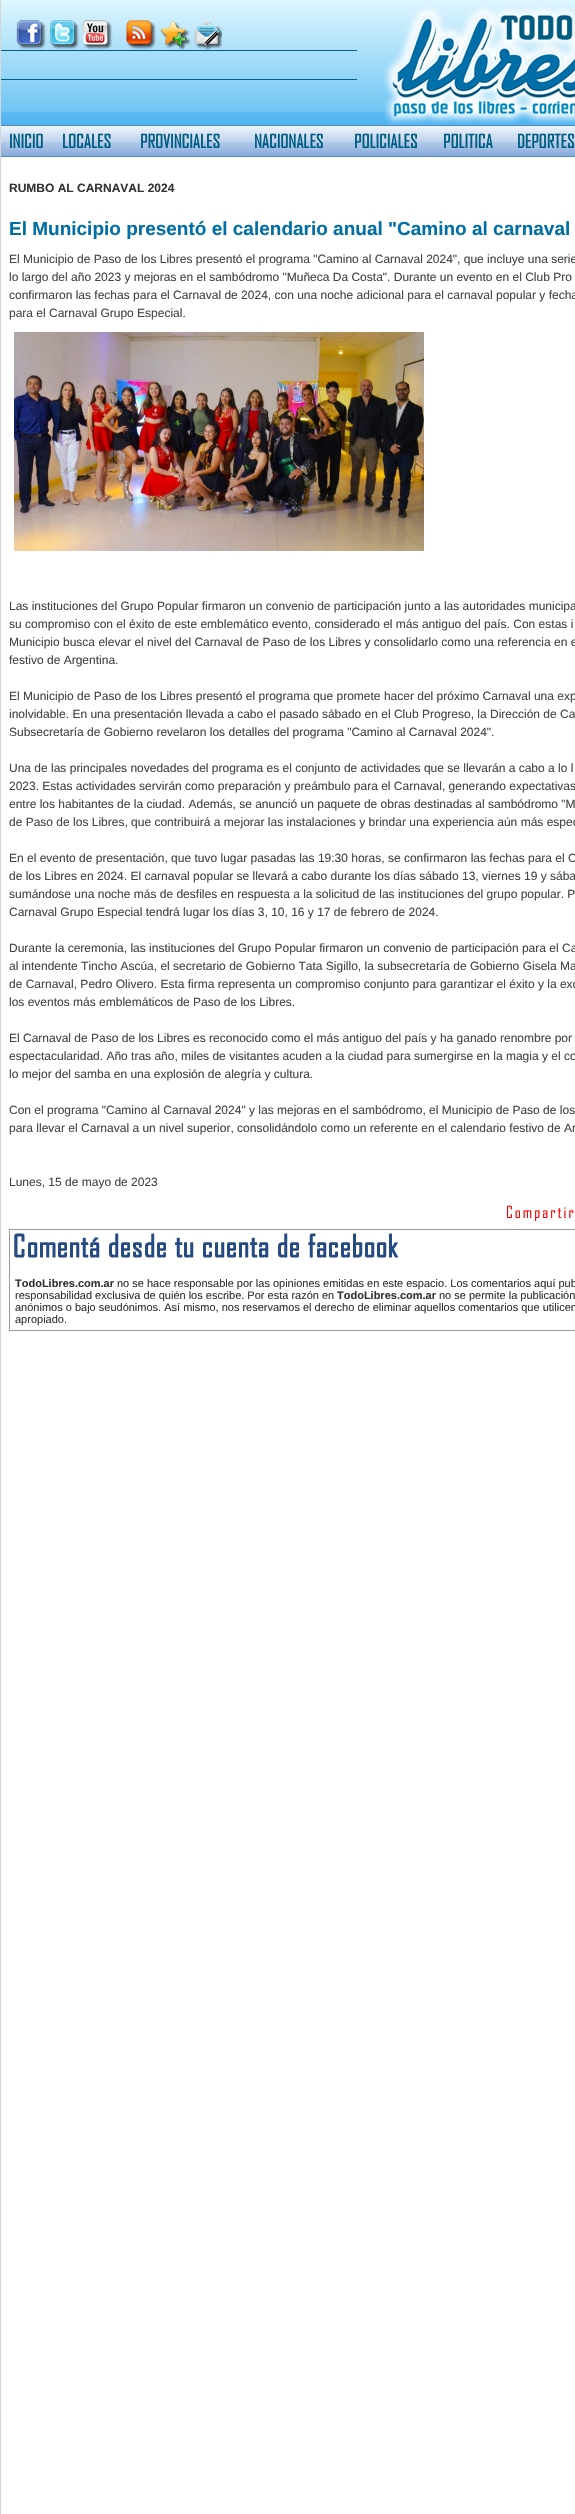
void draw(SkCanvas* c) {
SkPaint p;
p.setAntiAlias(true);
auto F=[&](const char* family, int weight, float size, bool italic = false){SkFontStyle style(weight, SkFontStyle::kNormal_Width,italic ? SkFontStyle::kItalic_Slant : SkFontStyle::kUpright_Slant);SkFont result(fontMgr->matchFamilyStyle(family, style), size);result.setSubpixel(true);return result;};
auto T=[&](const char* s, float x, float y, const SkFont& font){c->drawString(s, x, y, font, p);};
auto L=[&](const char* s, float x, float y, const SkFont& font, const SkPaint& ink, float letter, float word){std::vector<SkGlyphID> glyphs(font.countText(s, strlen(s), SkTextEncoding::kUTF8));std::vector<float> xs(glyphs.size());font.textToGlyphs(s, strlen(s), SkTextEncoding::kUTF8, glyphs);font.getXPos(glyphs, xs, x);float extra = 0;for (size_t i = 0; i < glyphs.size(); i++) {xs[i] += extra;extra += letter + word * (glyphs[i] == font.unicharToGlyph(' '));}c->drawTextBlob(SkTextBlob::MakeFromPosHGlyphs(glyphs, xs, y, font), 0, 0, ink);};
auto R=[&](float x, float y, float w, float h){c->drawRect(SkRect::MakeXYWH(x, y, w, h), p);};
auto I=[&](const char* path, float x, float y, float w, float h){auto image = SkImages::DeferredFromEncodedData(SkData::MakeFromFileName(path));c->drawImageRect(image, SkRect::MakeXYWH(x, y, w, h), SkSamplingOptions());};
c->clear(0xffffffff);
p.setColor(0xffd7d7d7);
R(0,0,1,2514);
I("1.png",1,0,574,125);
I("2.png",16,20,206,30);
I("4.png",1,125,574,32);
I("3.png",383,6,192,120);
auto f1 = F("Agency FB",700,18);
p.setColor(0xff005d82);
T("INICIO",9,148,f1);
T("LOCALES",62,148,f1);
T("PROVINCIALES",140,148,f1);
T("NACIONALES",254,148,f1);
T("POLICIALES",354,148,f1);
T("POLITICA",443,148,f1);
T("DEPORTES",517,148,f1);
auto f2 = F("Liberation Sans",700,12);
p.setColor(0xff333333);
T("RUMBO AL CARNAVAL 2024",9,192,f2);
auto f3 = F("Liberation Sans",700,19);
p.setColor(0xff006fa7);
T("El Municipio presentó el calendario anual \"Camino al carnaval",9,235,f3);
auto f4 = F("Liberation Sans",400,12);
p.setColor(0xff444444);
T("El Municipio de Paso de los Libres presentó el programa \"Camino al Carnaval 2024\", que incluye una serie",9,263,f4);
T("lo largo del año 2023 y mejoras en el sambódromo \"Muñeca Da Costa\". Durante un evento en el Club Pro",9,281,f4);
T("confirmaron las fechas para el Carnaval de 2024, con una noche adicional para el carnaval popular y fecha",9,299,f4);
T("para el Carnaval Grupo Especial.",9,317,f4);
I("5.png",14,332,410,219);
T("Las instituciones del Grupo Popular firmaron un convenio de participación junto a las autoridades municipa",9,610,f4);
T("su compromiso con el éxito de este emblemático evento, considerado el más antiguo del país. Con estas i",9,628,f4);
T("Municipio busca elevar el nivel del Carnaval de Paso de los Libres y consolidarlo como una referencia en e",9,646,f4);
T("festivo de Argentina.",9,664,f4);
T("El Municipio de Paso de los Libres presentó el programa que promete hacer del próximo Carnaval una exp",9,700,f4);
T("inolvidable. En una presentación llevada a cabo el pasado sábado en el Club Progreso, la Dirección de Ca",9,718,f4);
T("Subsecretaría de Gobierno revelaron los detalles del programa \"Camino al Carnaval 2024\".",9,736,f4);
T("Una de las principales novedades del programa es el conjunto de actividades que se llevarán a cabo a lo l",9,772,f4);
T("2023. Estas actividades servirán como preparación y preámbulo para el Carnaval, generando expectativas",9,790,f4);
T("entre los habitantes de la ciudad. Además, se anunció un paquete de obras destinadas al sambódromo \"M",9,808,f4);
T("de Paso de los Libres, que contribuirá a mejorar las instalaciones y brindar una experiencia aún más espec",9,826,f4);
T("En el evento de presentación, que tuvo lugar pasadas las 19:30 horas, se confirmaron las fechas para el C",9,862,f4);
T("de los Libres en 2024. El carnaval popular se llevará a cabo durante los días sábado 13, viernes 19 y sába",9,880,f4);
T("sumándose una noche más de desfiles en respuesta a la solicitud de las instituciones del grupo popular. P",9,898,f4);
T("Carnaval Grupo Especial tendrá lugar los días 3, 10, 16 y 17 de febrero de 2024.",9,916,f4);
T("Durante la ceremonia, las instituciones del Grupo Popular firmaron un convenio de participación para el Ca",9,952,f4);
T("al intendente Tincho Ascúa, el secretario de Gobierno Tata Sigillo, la subsecretaría de Gobierno Gisela Ma",9,970,f4);
T("de Carnaval, Pedro Olivero. Esta firma representa un compromiso conjunto para garantizar el éxito y la exc",9,988,f4);
T("los eventos más emblemáticos de Paso de los Libres.",9,1006,f4);
T("El Carnaval de Paso de los Libres es reconocido como el más antiguo del país y ha ganado renombre por",9,1042,f4);
T("espectacularidad. Año tras año, miles de visitantes acuden a la ciudad para sumergirse en la magia y el co",9,1060,f4);
T("lo mejor del samba en una explosión de alegría y cultura.",9,1078,f4);
T("Con el programa \"Camino al Carnaval 2024\" y las mejoras en el sambódromo, el Municipio de Paso de los",9,1114,f4);
T("para llevar el Carnaval a un nivel superior, consolidándolo como un referente en el calendario festivo de Ar",9,1132,f4);
T("Lunes, 15 de mayo de 2023",9,1186,f4);
auto f5 = F("Agency FB",400,16);
p.setColor(0xffff0000);
L("Compartir",506,1218,f5,p,2,0);
p.setStroke(true);
p.setStrokeWidth(1);
p.setColor(0xff999999);
c->drawRect(SkRect::MakeXYWH(9.5,1229.5,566,101),p);
I("6.png",14,1233,384,25);
auto f6 = F("Liberation Sans",700,11);
p.setStroke(false);
p.setColor(0xff333333);
T("TodoLibres.com.ar",15,1287,f6);
auto f7 = F("Liberation Sans",400,11);
T("no se hace responsable por las opiniones emitidas en este espacio. Los comentarios aquí pub",117,1287,f7);
T("responsabilidad exclusiva de quién los escribe. Por esta razón en",15,1299,f7);
T("TodoLibres.com.ar",337,1299,f6);
T("no se permite la publicación",439,1299,f7);
T("anónimos o bajo seudónimos. Así mismo, nos reservamos el derecho de eliminar aquellos comentarios que utilicen",15,1311,f7);
T("apropiado.",15,1323,f7);
}
